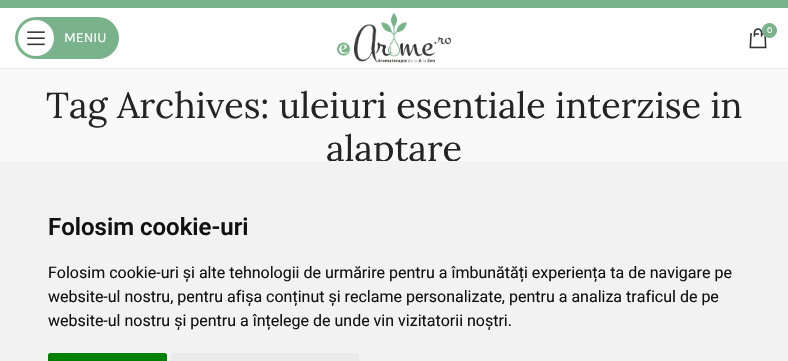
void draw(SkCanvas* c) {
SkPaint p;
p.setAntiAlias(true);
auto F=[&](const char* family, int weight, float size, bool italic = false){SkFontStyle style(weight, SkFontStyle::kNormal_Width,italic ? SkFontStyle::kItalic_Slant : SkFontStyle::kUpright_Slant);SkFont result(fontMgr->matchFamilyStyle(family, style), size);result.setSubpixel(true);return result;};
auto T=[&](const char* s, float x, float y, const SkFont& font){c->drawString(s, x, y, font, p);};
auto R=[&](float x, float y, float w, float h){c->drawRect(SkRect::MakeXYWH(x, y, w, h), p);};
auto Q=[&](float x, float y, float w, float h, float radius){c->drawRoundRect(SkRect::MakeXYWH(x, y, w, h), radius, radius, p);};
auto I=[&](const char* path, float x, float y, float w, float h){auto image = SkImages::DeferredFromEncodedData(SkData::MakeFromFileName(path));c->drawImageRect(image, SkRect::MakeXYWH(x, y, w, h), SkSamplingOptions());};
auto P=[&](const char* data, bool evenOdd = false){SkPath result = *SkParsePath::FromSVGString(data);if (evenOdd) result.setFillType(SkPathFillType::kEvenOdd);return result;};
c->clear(0xffffffff);
p.setColor(0xff79b38a);
R(0,0,788,8);
p.setColor(0xffe8e8e8);
R(0,68,788,1);
I("1.png",337,13,114,50);
I("2.png",749,28,18,21);
p.setColor(0xff7ab38b);
c->drawCircle(769.5,30.5,7.5,p);
auto f1 = F("Karla",400,9);
p.setColor(0xffffffff);
T("0",767,33,f1);
p.setColor(0xff7ab38b);
Q(15,17,104,42,21);
p.setColor(0xffffffff);
c->drawCircle(36,38,18,p);
I("3.png",27,31,18,15);
auto f2 = F("Karla",400,14);
T("MENIU",64,42,f2);
p.setColor(0xfff9f9f9);
R(0,69,788,92);
auto f3 = F("Lora",400,36);
p.setColor(0xff242424);
T("Tag Archives: uleiuri esentiale interzise in",46,118,f3);
T("alaptare",326,161,f3);
p.setColor(0xfff2f2f2);
R(0,161,788,200);
auto f4 = F("Roboto",600,24);
p.setColor(0xff111111);
T("Folosim cookie-uri",48,235,f4);
auto f5 = F("Roboto",400,16);
T("Folosim cookie-uri și alte tehnologii de urmărire pentru a îmbunătăți experiența ta de navigare pe",48,278,f5);
T("website-ul nostru, pentru afișa conținut și reclame personalizate, pentru a analiza traficul de pe",48,302,f5);
T("website-ul nostru și pentru a înțelege de unde vin vizitatorii noștri.",48,326,f5);
p.setColor(0xff008000);
c->drawPath(P("M50 353h115c1 0 2 1 2 2v6h-119v-6c0-1 1-2 2-2z"),p);
p.setColor(0xffeaeaea);
c->drawPath(P("M173 353h184c1 0 2 1 2 2v6h-188v-6c0-1 1-2 2-2z"),p);
}
